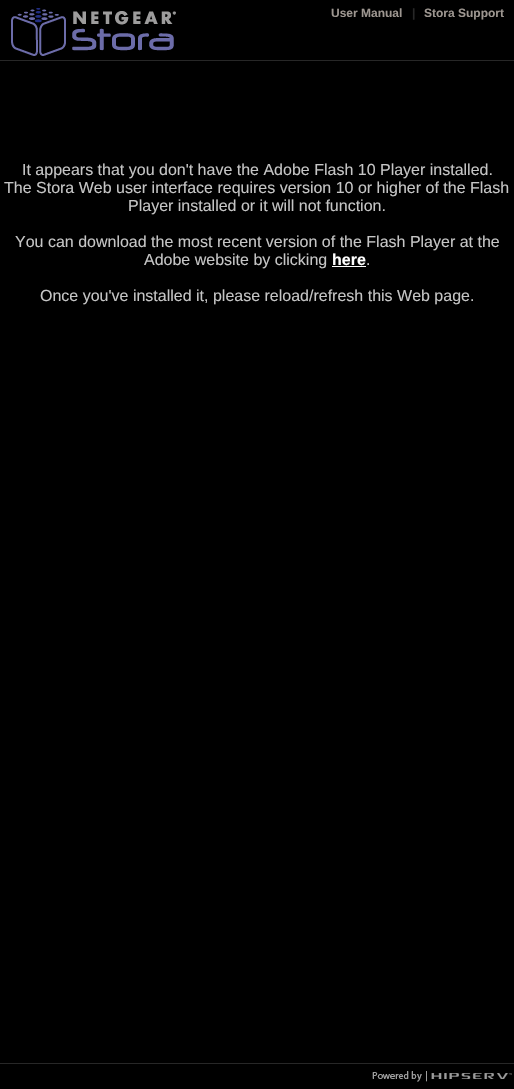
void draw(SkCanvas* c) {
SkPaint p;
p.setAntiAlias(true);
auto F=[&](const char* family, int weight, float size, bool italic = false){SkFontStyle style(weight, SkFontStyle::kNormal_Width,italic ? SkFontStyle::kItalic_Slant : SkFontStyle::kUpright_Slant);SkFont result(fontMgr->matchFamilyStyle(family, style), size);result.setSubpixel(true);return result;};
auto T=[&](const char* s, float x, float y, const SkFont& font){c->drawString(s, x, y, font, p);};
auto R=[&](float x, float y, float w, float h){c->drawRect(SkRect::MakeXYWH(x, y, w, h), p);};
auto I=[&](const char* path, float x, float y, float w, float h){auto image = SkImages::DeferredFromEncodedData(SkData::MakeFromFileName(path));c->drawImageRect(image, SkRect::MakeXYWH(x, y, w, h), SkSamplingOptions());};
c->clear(0xff000000);
p.setColor(0xff272727);
R(0,60,514,1);
I("1.png",11,8,165,48);
auto f1 = F("Liberation Sans",700,12);
p.setColor(0xff9d9690);
T("User Manual",331,17,f1);
p.setColor(0xff272727);
T("|",412,17,f1);
p.setColor(0xff9d9690);
T("Stora Support",424,17,f1);
auto f2 = F("Liberation Sans",400,16);
p.setColor(0xffc5c5c5);
T("It appears that you don't have the Adobe Flash 10 Player installed.",22,175,f2);
T("The Stora Web user interface requires version 10 or higher of the Flash",4,193,f2);
T("Player installed or it will not function.",128,211,f2);
T("You can download the most recent version of the Flash Player at the",15,247,f2);
T("Adobe website by clicking",144,265,f2);
auto f3 = F("Liberation Sans",700,16);
p.setColor(0xffffffff);
T("here",332,265,f3);
R(332,266,34,1);
p.setColor(0xffc5c5c5);
T(".",366,265,f2);
T("Once you've installed it, please reload/refresh this Web page.",40,301,f2);
p.setColor(0xff272727);
R(0,1063,514,1);
I("2.png",372,1071,140,11);
}
